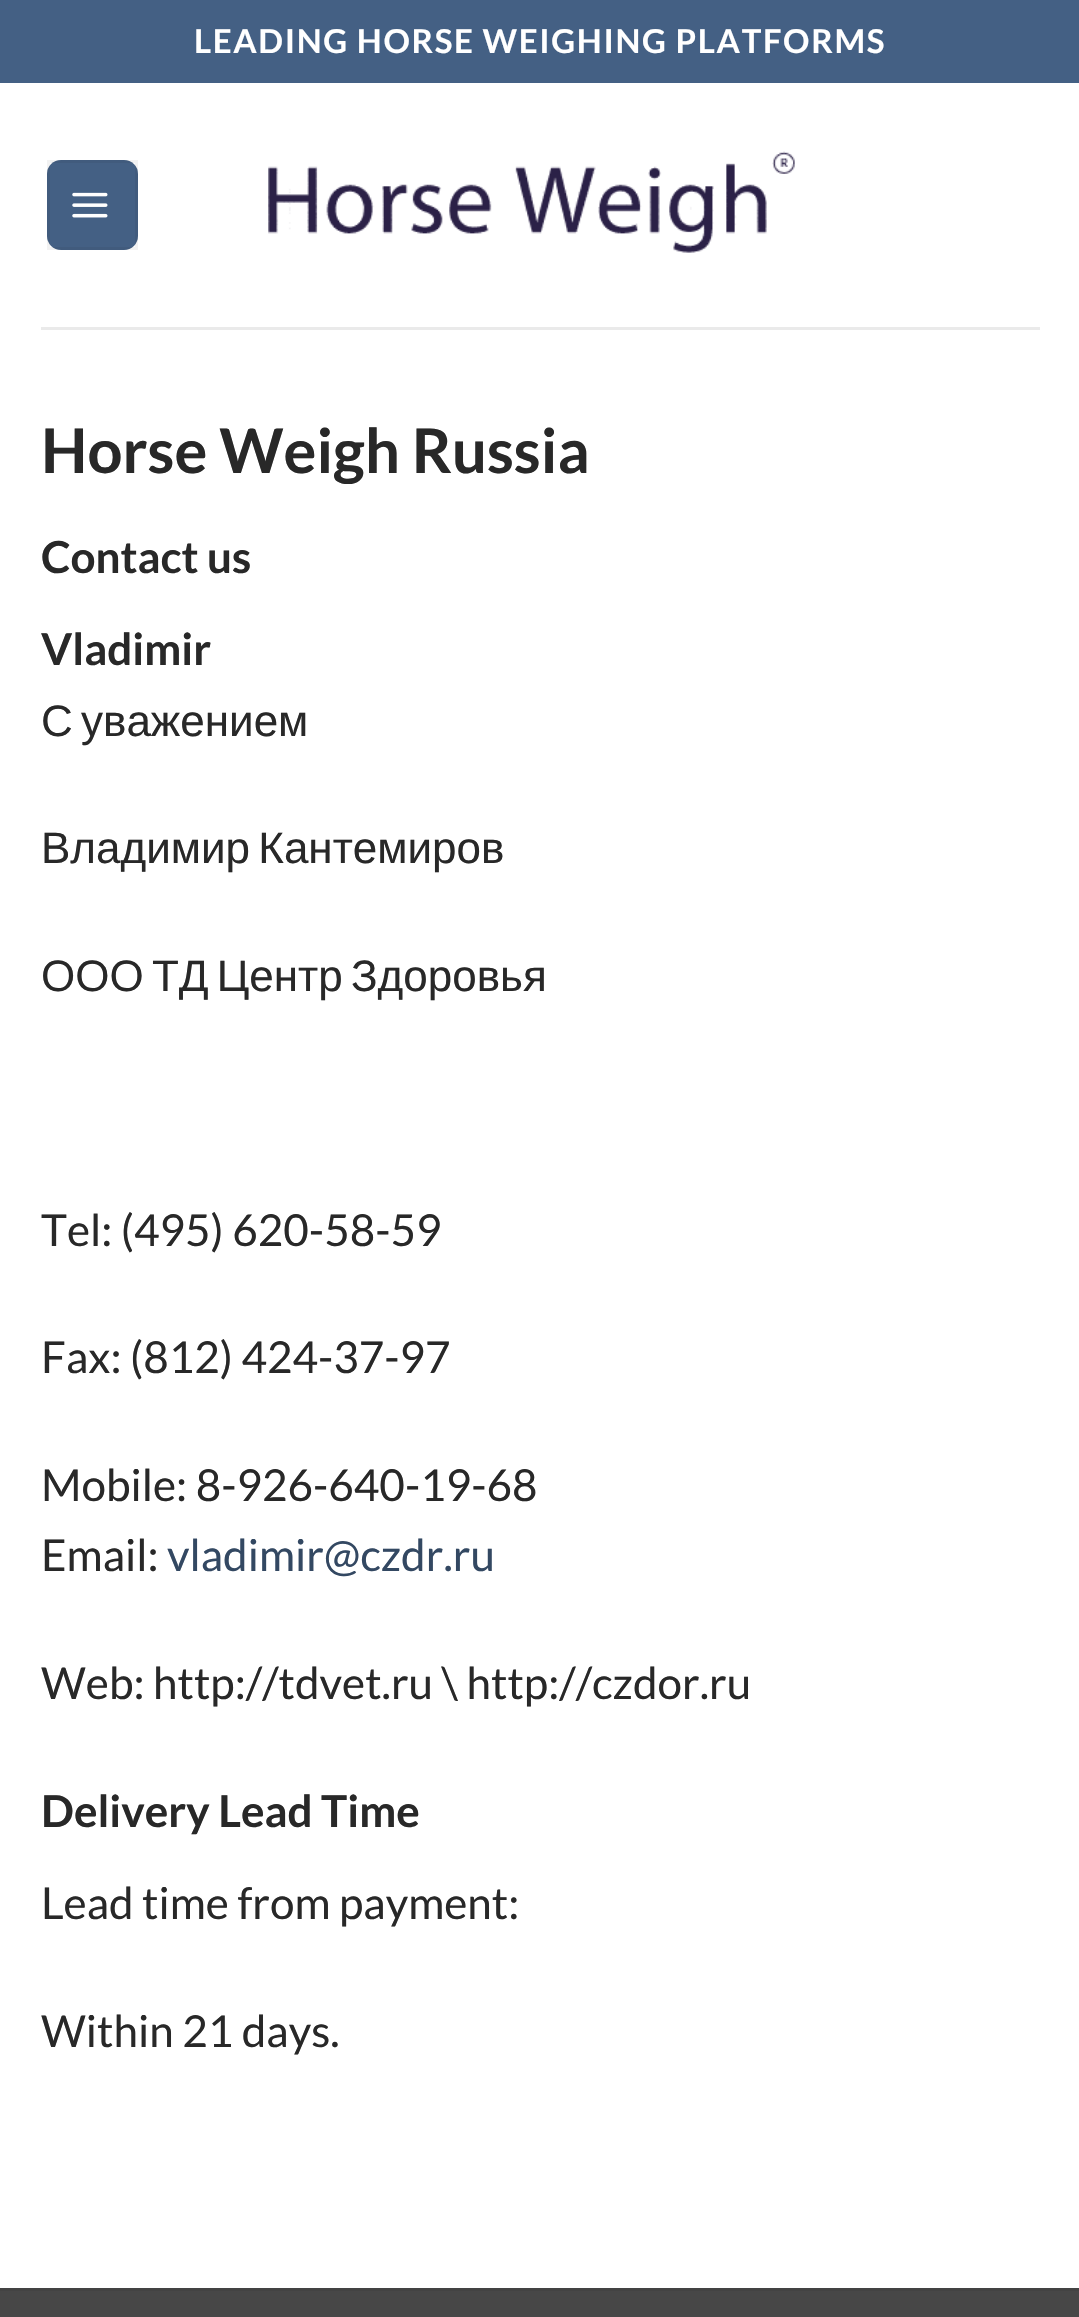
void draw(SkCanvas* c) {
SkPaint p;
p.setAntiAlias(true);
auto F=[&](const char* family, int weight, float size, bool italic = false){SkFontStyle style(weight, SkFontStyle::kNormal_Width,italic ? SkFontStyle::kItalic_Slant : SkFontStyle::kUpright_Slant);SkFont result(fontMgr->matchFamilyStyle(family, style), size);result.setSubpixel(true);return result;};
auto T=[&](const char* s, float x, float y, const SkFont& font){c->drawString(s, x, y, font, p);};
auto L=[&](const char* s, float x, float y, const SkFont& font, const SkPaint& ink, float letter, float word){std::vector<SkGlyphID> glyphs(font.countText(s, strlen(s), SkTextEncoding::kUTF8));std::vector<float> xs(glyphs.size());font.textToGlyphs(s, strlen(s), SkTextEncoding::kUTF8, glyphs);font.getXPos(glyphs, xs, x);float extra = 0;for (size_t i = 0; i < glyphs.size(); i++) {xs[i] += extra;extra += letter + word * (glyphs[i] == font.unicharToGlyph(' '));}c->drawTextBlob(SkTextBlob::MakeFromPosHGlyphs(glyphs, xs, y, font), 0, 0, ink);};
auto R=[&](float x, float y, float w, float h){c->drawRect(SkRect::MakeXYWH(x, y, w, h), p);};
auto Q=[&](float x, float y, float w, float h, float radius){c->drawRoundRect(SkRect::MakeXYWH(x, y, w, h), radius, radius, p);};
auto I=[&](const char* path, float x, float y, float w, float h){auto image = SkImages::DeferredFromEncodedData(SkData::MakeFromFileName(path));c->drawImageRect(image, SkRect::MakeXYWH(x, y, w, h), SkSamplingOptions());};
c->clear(0xffffffff);
p.setColor(0xff446084);
R(0,0,1079,83);
auto f1 = F("Lato",700,33);
p.setColor(0xffffffff);
L("LEADING HORSE WEIGHING PLATFORMS",194,53,f1,p,1.65,0);
p.setColor(0xff446084);
Q(47,160,91,90,14);
p.setStroke(true);
p.setStrokeWidth(3);
p.setColor(0x0d000000);
c->drawRect(SkRect::MakeXYWH(48.5,161.5,88,87),p);
I("1.png",72,192,36,26);
I("2.png",268,151,527,102);
p.setStroke(false);
p.setColor(0xffeaeaea);
R(41,327,999,3);
auto f2 = F("Lato",700,61.5);
p.setColor(0xff282828);
T("Horse Weigh Russia",41,473,f2);
auto f3 = F("Lato",700,44);
T("Contact us",41,573,f3);
T("Vladimir",41,665,f3);
auto f4 = F("Liberation Sans",400,44);
L("С уважением",41,736,f4,p,0,-4);
L("Владимир Кантемиров",41,863,f4,p,0,-4);
L("ООО ТД Центр Здоровья",41,991,f4,p,0,-4);
auto f5 = F("Lato",400,44);
T("Tel: (495) 620-58-59",41,1246,f5);
T("Fax: (812) 424-37-97",41,1373,f5);
T("Mobile: 8-926-640-19-68",41,1501,f5);
T("Email:",41,1571,f5);
p.setColor(0xff334862);
T("vladimir@czdr.ru",167,1571,f5);
p.setColor(0xff282828);
T("Web: http://tdvet.ru \\ http://czdor.ru",41,1699,f5);
T("Delivery Lead Time",41,1827,f3);
T("Lead time from payment:",41,1919,f5);
T("Within 21 days.",41,2047,f5);
p.setColor(0xff474747);
R(0,2291,1079,26);
p.setColor(0xff434343);
R(0,2288,1079,3);
}
